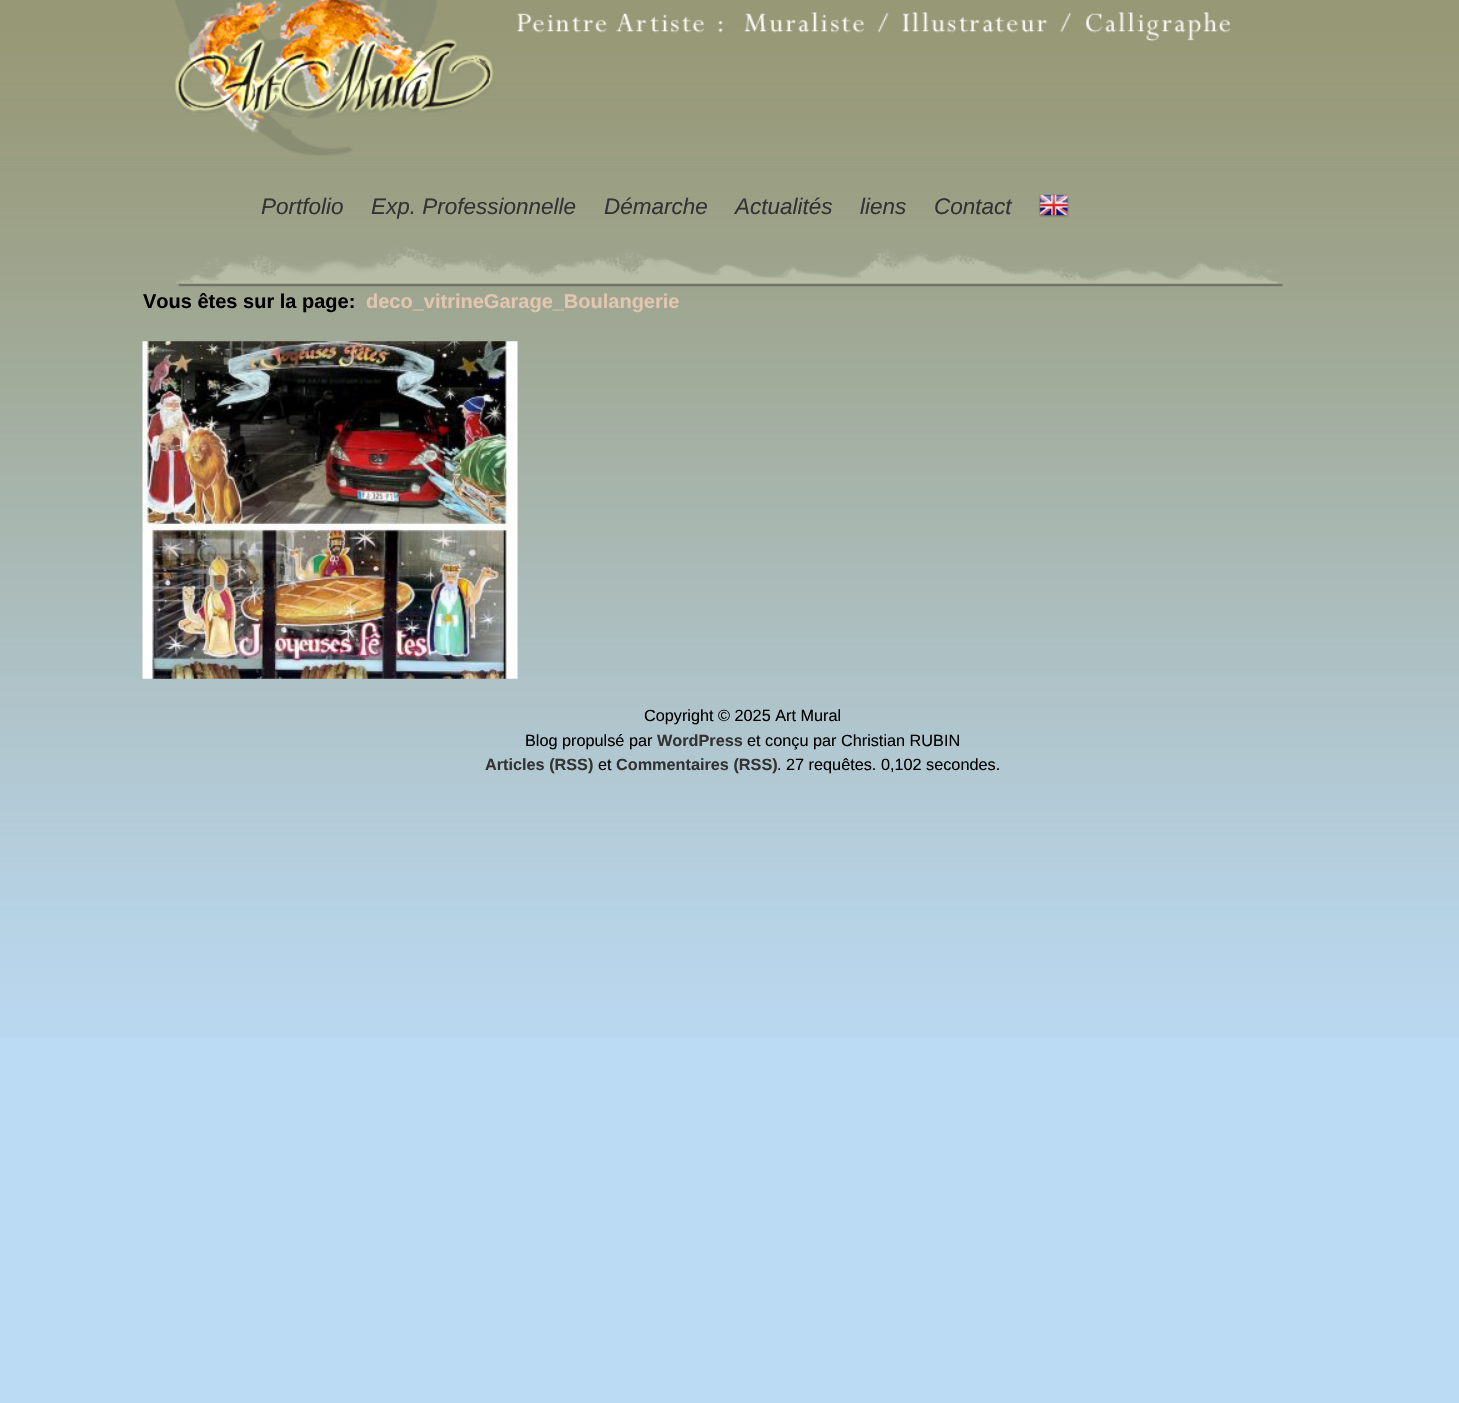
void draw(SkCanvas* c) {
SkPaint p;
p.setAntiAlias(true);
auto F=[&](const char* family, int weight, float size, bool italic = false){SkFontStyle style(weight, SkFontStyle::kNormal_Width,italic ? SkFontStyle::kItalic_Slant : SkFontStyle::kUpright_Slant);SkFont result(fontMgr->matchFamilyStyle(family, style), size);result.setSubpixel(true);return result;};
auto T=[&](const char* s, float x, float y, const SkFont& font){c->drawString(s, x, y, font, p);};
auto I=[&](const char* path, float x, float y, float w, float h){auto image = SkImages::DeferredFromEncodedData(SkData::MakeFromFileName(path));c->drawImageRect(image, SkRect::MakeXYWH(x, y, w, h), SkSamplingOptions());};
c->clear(0xffbbdbf4);
I("1.png",0,0,1459,1037);
I("2.png",175,0,318,156);
I("3.png",175,0,319,156);
I("4.png",517,12,713,30);
auto f1 = F("Liberation Sans",400,22.5,true);
p.setColor(0xff333333);
T("Portfolio",261,214,f1);
T("Exp. Professionnelle",371,214,f1);
T("Démarche",604,214,f1);
T("Actualités",735,214,f1);
T("liens",860,214,f1);
T("Contact",934,214,f1);
I("5.png",1038,194,31,24);
I("6.png",176,246,1107,41);
auto f2 = F("Liberation Sans",700,20);
p.setColor(0xff000000);
T("Vous êtes sur la page:",143,308,f2);
p.setColor(0xffe3c5b0);
T("deco_vitrineGarage_Boulangerie",366,308,f2);
I("7.png",142,341,376,338);
auto f3 = F("Liberation Sans",400,16.25);
p.setColor(0xff000000);
T("Copyright © 2025 Art Mural",644,721,f3);
T("Blog propulsé par",525,746,f3);
auto f4 = F("Liberation Sans",700,16.25);
p.setColor(0xff333333);
T("WordPress",657,746,f4);
p.setColor(0xff000000);
T("et conçu par Christian RUBIN",747,746,f3);
p.setColor(0xff333333);
T("Articles (RSS)",485,770,f4);
p.setColor(0xff000000);
T("et",598,770,f3);
p.setColor(0xff333333);
T("Commentaires (RSS)",616,770,f4);
p.setColor(0xff000000);
T(". 27 requêtes. 0,102 secondes.",777,770,f3);
}
